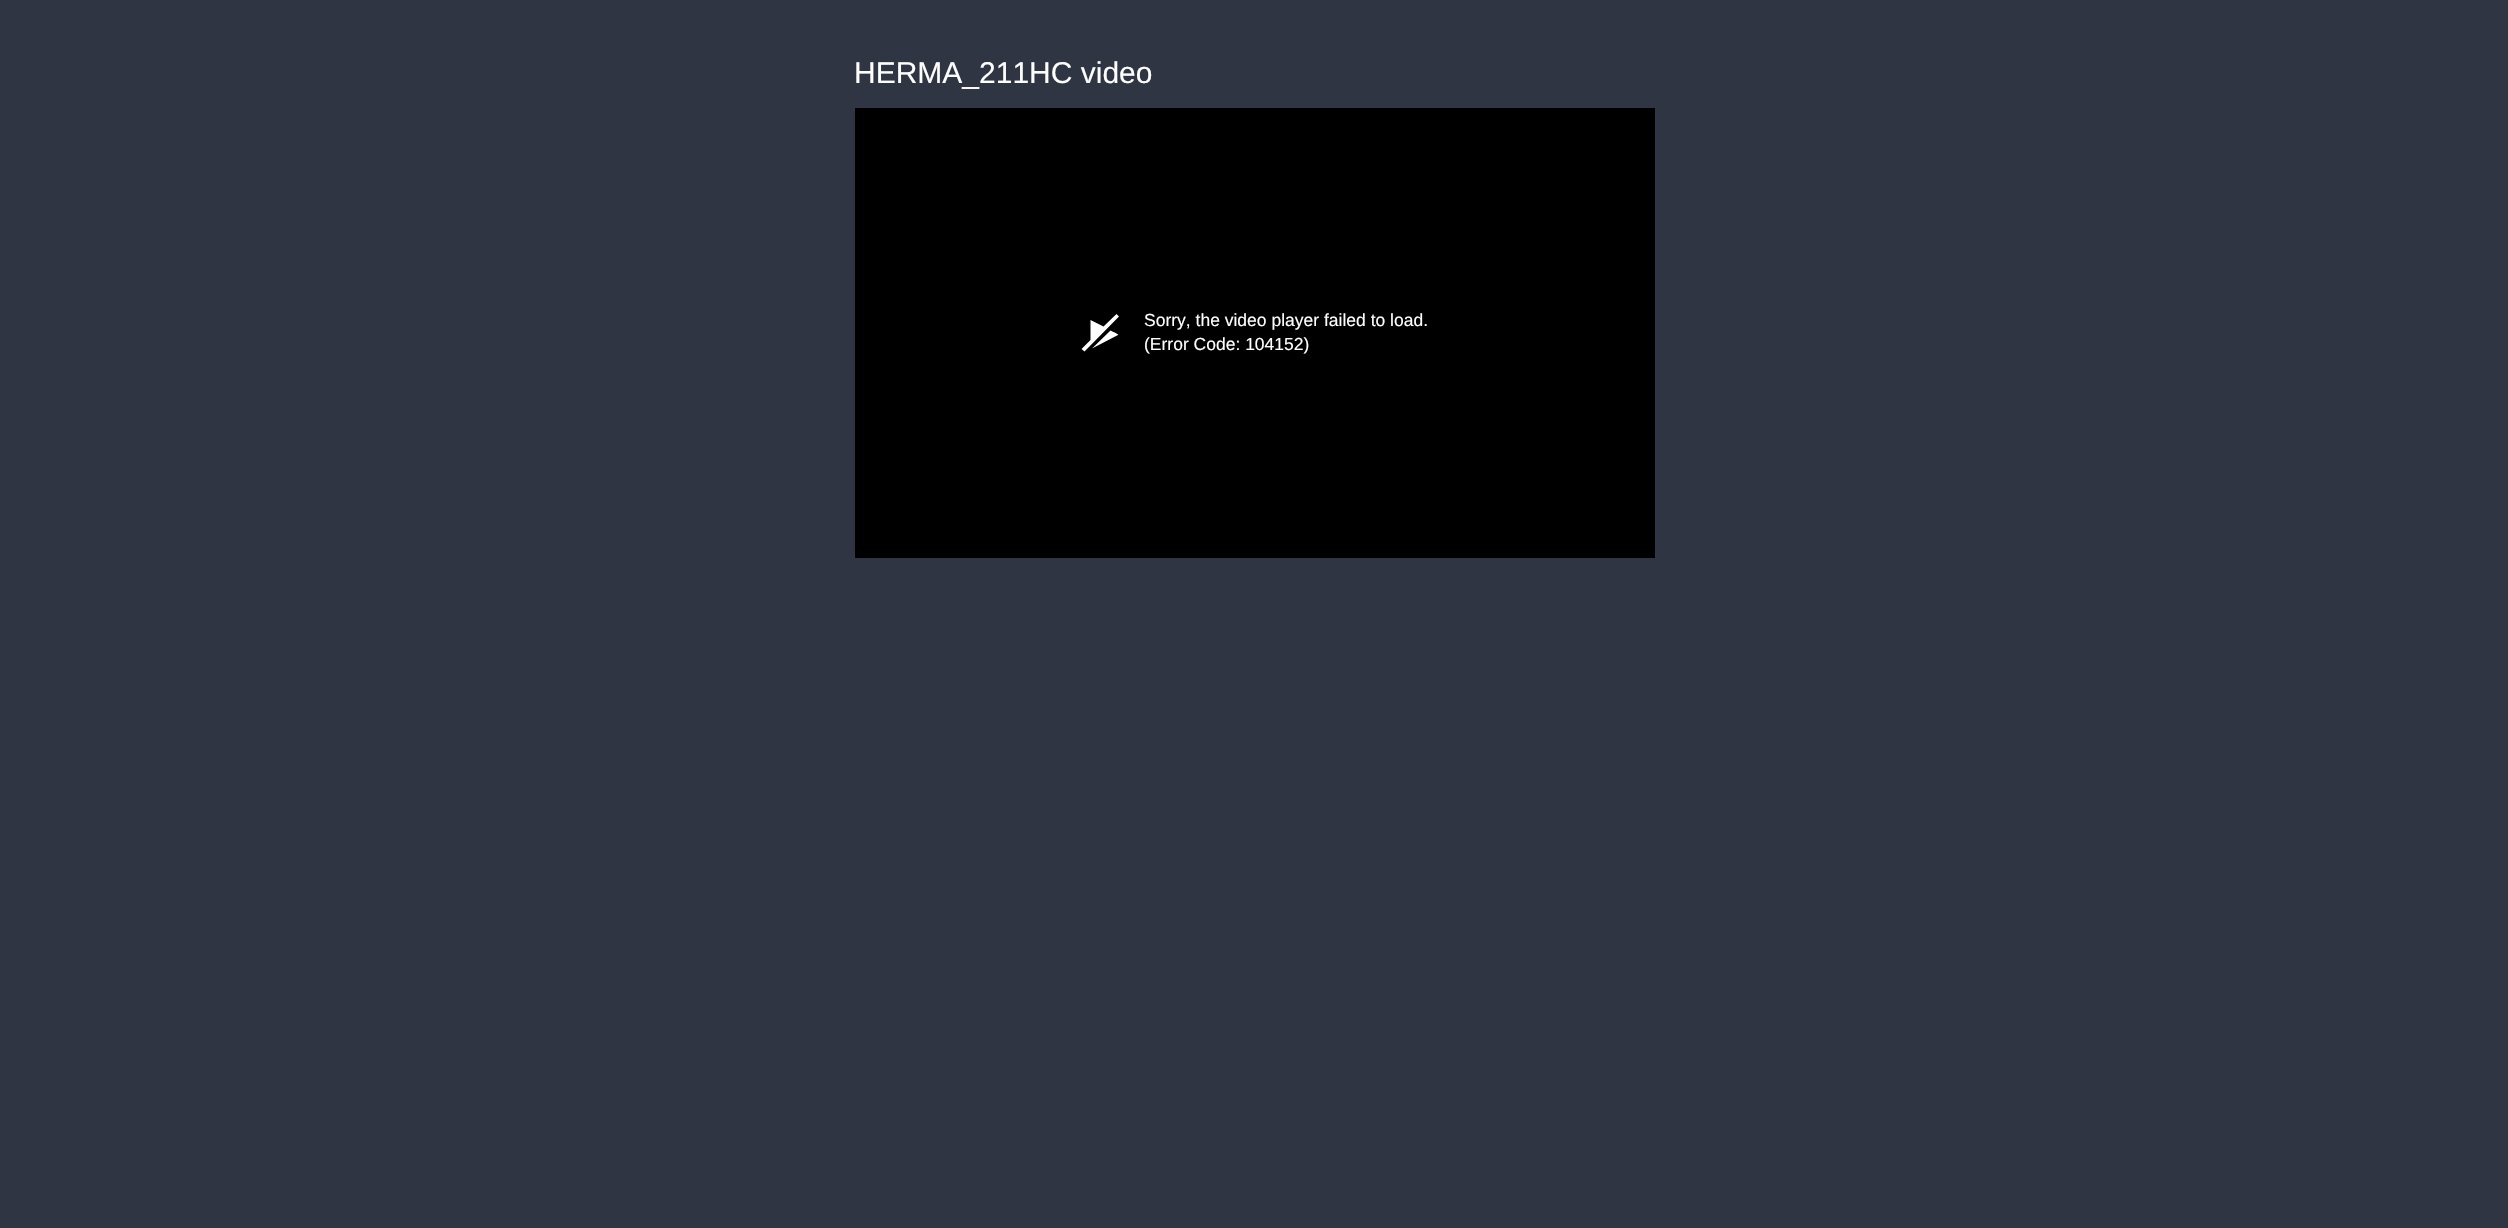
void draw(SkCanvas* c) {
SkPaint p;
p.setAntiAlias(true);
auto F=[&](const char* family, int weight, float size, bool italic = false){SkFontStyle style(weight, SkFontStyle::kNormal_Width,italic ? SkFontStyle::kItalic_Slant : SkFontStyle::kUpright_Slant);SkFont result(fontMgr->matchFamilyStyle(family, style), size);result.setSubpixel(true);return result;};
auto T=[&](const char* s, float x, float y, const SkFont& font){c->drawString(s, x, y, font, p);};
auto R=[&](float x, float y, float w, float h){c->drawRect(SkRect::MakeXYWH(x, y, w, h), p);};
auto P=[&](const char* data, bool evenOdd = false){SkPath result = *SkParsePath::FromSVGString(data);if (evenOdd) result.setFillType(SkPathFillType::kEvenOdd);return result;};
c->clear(0xff2f3542);
auto f1 = F("Liberation Sans",400,30);
p.setColor(0xffffffff);
T("HERMA_211HC video",854,83,f1);
p.setColor(0xff000000);
R(855,108,800,450);
p.setColor(0xffffffff);
c->drawPath(P("M1118 335l-26 13.5l18.5-18c7 3.5 8.5 4 7.5 4.5zm-1.5-21l-13 12.5l-13-6.5v20l-9 9l3 2.5l34.5-35z"),p);
auto f2 = F("Liberation Sans",400,17.5);
T("Sorry, the video player failed to load.",1144,326,f2);
T("(Error Code: 104152)",1144,350,f2);
}
